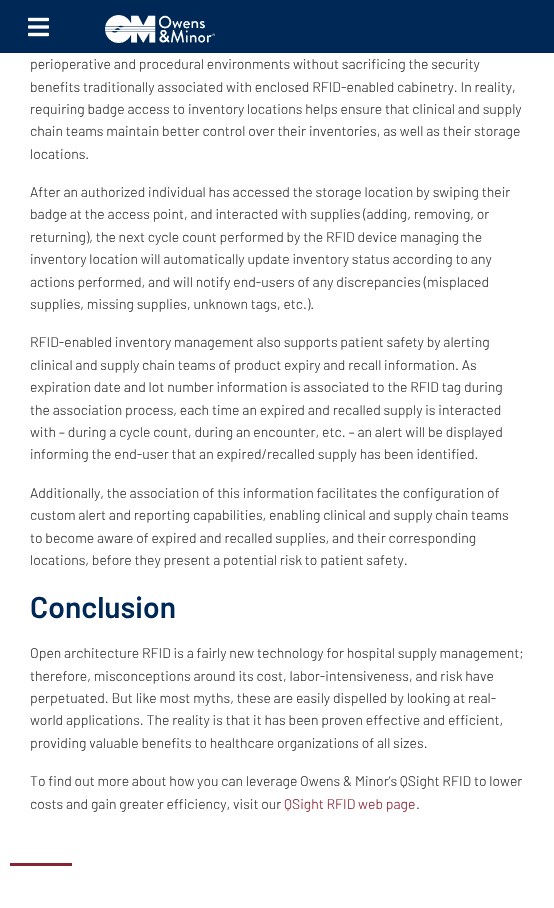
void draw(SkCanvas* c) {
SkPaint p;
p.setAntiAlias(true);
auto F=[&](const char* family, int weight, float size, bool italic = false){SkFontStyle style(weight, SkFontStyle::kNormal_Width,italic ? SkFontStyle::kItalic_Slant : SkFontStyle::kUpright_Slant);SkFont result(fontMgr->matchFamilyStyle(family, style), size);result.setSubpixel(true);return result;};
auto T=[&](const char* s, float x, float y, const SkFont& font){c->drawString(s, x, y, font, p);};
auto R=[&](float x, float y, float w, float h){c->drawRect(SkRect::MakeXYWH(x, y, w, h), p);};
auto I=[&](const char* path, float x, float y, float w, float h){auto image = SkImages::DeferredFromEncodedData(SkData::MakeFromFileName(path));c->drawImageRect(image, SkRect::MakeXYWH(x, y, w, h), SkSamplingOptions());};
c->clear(0xffffffff);
p.setColor(0xff002856);
R(0,0,554,53);
I("1.png",28,17,21,20);
I("2.png",105,15,110,28);
auto f1 = F("Barlow",300,14);
p.setColor(0xff343735);
T("perioperative and procedural environments without sacrificing the security",30,69,f1);
T("benefits traditionally associated with enclosed RFID-enabled cabinetry. In reality,",30,92,f1);
T("requiring badge access to inventory locations helps ensure that clinical and supply",30,114,f1);
T("chain teams maintain better control over their inventories, as well as their storage",30,136,f1);
T("locations.",30,159,f1);
T("After an authorized individual has accessed the storage location by swiping their",30,197,f1);
T("badge at the access point, and interacted with supplies (adding, removing, or",30,219,f1);
T("returning), the next cycle count performed by the RFID device managing the",30,242,f1);
T("inventory location will automatically update inventory status according to any",30,264,f1);
T("actions performed, and will notify end-users of any discrepancies (misplaced",30,287,f1);
T("supplies, missing supplies, unknown tags, etc.).",30,309,f1);
T("RFID-enabled inventory management also supports patient safety by alerting",30,347,f1);
T("clinical and supply chain teams of product expiry and recall information. As",30,370,f1);
T("expiration date and lot number information is associated to the RFID tag during",30,392,f1);
T("the association process, each time an expired and recalled supply is interacted",30,415,f1);
T("with – during a cycle count, during an encounter, etc. – an alert will be displayed",30,437,f1);
T("informing the end-user that an expired/recalled supply has been identified.",30,459,f1);
T("Additionally, the association of this information facilitates the configuration of",30,498,f1);
T("custom alert and reporting capabilities, enabling clinical and supply chain teams",30,520,f1);
T("to become aware of expired and recalled supplies, and their corresponding",30,543,f1);
T("locations, before they present a potential risk to patient safety.",30,565,f1);
auto f2 = F("Barlow",600,30);
p.setColor(0xff002856);
T("Conclusion",30,618,f2);
p.setColor(0xff343735);
T("Open architecture RFID is a fairly new technology for hospital supply management;",30,658,f1);
T("therefore, misconceptions around its cost, labor-intensiveness, and risk have",30,681,f1);
T("perpetuated. But like most myths, these are easily dispelled by looking at real-",30,703,f1);
T("world applications. The reality is that it has been proven effective and efficient,",30,725,f1);
T("providing valuable benefits to healthcare organizations of all sizes.",30,748,f1);
T("To find out more about how you can leverage Owens & Minor’s QSight RFID to lower",30,786,f1);
T("costs and gain greater efficiency, visit our",30,809,f1);
p.setColor(0xff872434);
T("QSight RFID web page",284,809,f1);
p.setColor(0xff343735);
T(".",416,809,f1);
p.setColor(0xff872434);
R(10,863,62,3);
}
